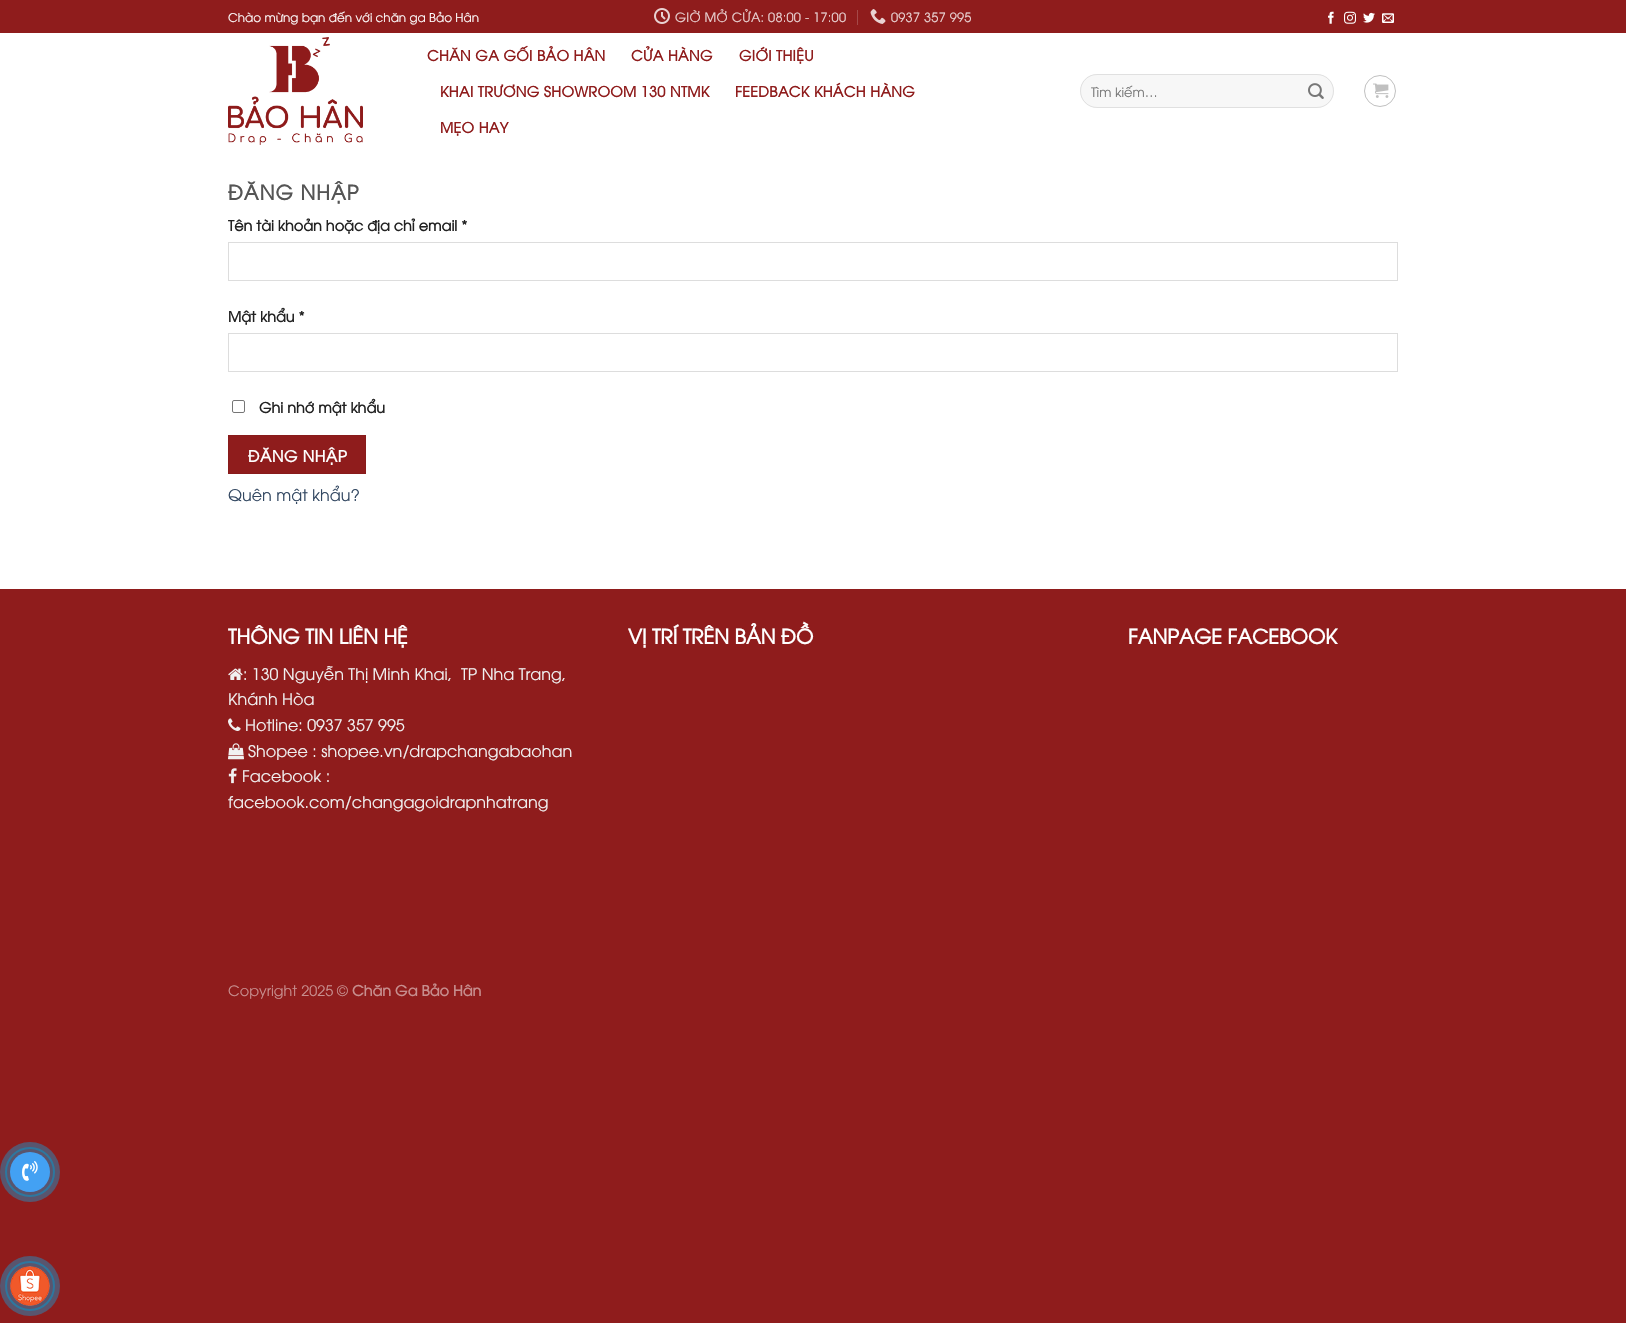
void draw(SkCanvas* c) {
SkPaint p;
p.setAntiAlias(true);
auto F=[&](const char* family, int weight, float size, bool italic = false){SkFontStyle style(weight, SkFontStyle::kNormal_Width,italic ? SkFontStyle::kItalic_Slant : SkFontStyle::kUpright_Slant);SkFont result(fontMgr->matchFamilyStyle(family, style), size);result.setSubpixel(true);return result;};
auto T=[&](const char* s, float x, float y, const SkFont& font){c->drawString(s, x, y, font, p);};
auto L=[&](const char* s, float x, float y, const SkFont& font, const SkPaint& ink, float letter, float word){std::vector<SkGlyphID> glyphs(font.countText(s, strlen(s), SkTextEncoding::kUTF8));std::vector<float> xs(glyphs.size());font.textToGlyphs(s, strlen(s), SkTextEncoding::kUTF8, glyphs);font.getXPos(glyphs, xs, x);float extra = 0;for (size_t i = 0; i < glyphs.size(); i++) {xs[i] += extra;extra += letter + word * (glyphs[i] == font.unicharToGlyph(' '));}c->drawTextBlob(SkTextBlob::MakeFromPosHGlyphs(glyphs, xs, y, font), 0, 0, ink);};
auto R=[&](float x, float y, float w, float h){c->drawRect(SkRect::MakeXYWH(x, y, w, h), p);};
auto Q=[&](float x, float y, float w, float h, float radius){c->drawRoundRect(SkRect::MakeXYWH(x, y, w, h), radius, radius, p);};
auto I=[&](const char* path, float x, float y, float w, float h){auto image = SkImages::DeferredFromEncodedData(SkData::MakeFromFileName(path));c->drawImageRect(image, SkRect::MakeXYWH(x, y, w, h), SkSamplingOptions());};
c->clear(0xff8f1c1c);
p.setColor(0xffffffff);
R(0,33,1626,556);
auto f1 = F("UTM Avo",400,12);
T("Chào mừng bạn đến với chăn ga Bảo Hân",228,22,f1);
I("1.png",654,8,16,16);
auto f2 = F("UTM Avo",400,12.75);
p.setColor(0xffe9d2d2);
L("GIỜ MỞ CỬA: 08:00 - 17:00",675,22,f2,p,.25,0);
p.setColor(0xffa54949);
R(857,10,1,15);
I("2.png",870,9,16,15);
p.setColor(0xffe9d2d2);
L("0937 357 995",891,22,f2,p,.25,0);
I("3.png",1328,11,6,13);
I("4.png",1344,11,12,13);
I("5.png",1363,12,12,11);
I("6.png",1382,13,12,10);
I("7.png",228,37,135,108);
auto f3 = F("UTM Avo",700,14.4);
p.setColor(0xff8f1c1c);
L("CHĂN GA GỐI BẢO HÂN",427,61,f3,p,.3,0);
L("CỬA HÀNG",631,61,f3,p,.3,0);
L("GIỚI THIỆU",739,61,f3,p,.3,0);
L("KHAI TRƯƠNG SHOWROOM 130 NTMK",440,97,f3,p,.3,0);
L("FEEDBACK KHÁCH HÀNG",735,97,f3,p,.3,0);
L("MẸO HAY",440,133,f3,p,.3,0);
p.setColor(0xfff7f7f7);
Q(1080,74,254,34,17);
p.setStroke(true);
p.setStrokeWidth(1);
p.setColor(0x17000000);
c->drawRoundRect(SkRect::MakeXYWH(1080.5,74.5,253,33),16.5,16.5,p);
auto f4 = F("UTM Avo",400,13);
p.setStroke(false);
p.setColor(0xff757575);
T("Tìm kiếm…",1091,97,f4);
I("8.png",1308,83,16,16);
p.setStroke(true);
p.setColor(0xffc0c0c0);
c->drawCircle(1380,91,15.5,p);
I("9.png",1373,83,16,15);
auto f5 = F("UTM Avo",700,20);
p.setStroke(false);
p.setColor(0xff555555);
L("ĐĂNG NHẬP",228,200,f5,p,1,0);
p.setColor(0xff222222);
T("Tên tài khoản hoặc địa chỉ email *",228,231,f3);
p.setStroke(true);
p.setColor(0xffdddddd);
c->drawRect(SkRect::MakeXYWH(228.5,242.5,1169,38),p);
p.setStroke(false);
p.setColor(0xff222222);
T("Mật khẩu *",228,322,f3);
p.setStroke(true);
p.setColor(0xffdddddd);
c->drawRect(SkRect::MakeXYWH(228.5,333.5,1169,38),p);
p.setColor(0xff767676);
c->drawRoundRect(SkRect::MakeXYWH(232.5,400.5,12,12),1.5,1.5,p);
p.setStroke(false);
p.setColor(0xff222222);
T("Ghi nhớ mật khẩu",259,413,f3);
p.setColor(0xff8f1c1c);
c->drawRect(SkRect::MakeXYWH(228.5,435.5,137,38),p);
p.setStroke(true);
p.setColor(0xff881b1b);
c->drawRect(SkRect::MakeXYWH(228.5,435.5,137,38),p);
auto f6 = F("UTM Avo",700,15.5);
p.setStroke(false);
p.setColor(0xffffffff);
L("ĐĂNG NHẬP",248,462,f6,p,.5,0);
auto f7 = F("UTM Avo",400,16);
p.setColor(0xff334862);
T("Quên mật khẩu?",228,501,f7);
p.setColor(0xffffffff);
T("THÔNG TIN LIÊN HỆ",228,644,f5);
I("10.png",228,668,15,12);
p.setColor(0xfff1f1f1);
T(": 130 Nguyễn Thị Minh Khai,  TP Nha Trang,",243,680,f7);
T("Khánh Hòa",228,705,f7);
I("11.png",228,718,13,13);
T("Hotline: 0937 357 995",245,731,f7);
I("12.png",228,743,16,17);
T("Shopee : shopee.vn/drapchangabaohan",248,757,f7);
I("13.png",228,768,9,16);
T("Facebook :",242,782,f7);
T("facebook.com/changagoidrapnhatrang",228,808,f7);
p.setColor(0xffffffff);
T("VỊ TRÍ TRÊN BẢN ĐỒ",628,644,f5);
T("FANPAGE FACEBOOK",1128,644,f5);
auto f8 = F("UTM Avo",400,14.4);
p.setColor(0xffc78e8e);
T("Copyright 2025 ©",228,996,f8);
T("Chăn Ga Bảo Hân",352,996,f3);
p.setStroke(true);
p.setStrokeWidth(2);
p.setColor(0xff48536b);
c->drawCircle(30,1172,24,p);
p.setStroke(false);
p.setColor(0x6100aff2);
c->drawCircle(30,1172,30,p);
p.setColor(0xff43a1f3);
c->drawCircle(30,1172,20,p);
I("14.png",22,1161,16,20);
p.setStroke(true);
p.setColor(0xff48536b);
c->drawCircle(30,1286,24,p);
p.setStroke(false);
p.setColor(0x6100aff2);
c->drawCircle(30,1286,30,p);
I("15.png",10,1266,40,40);
}
